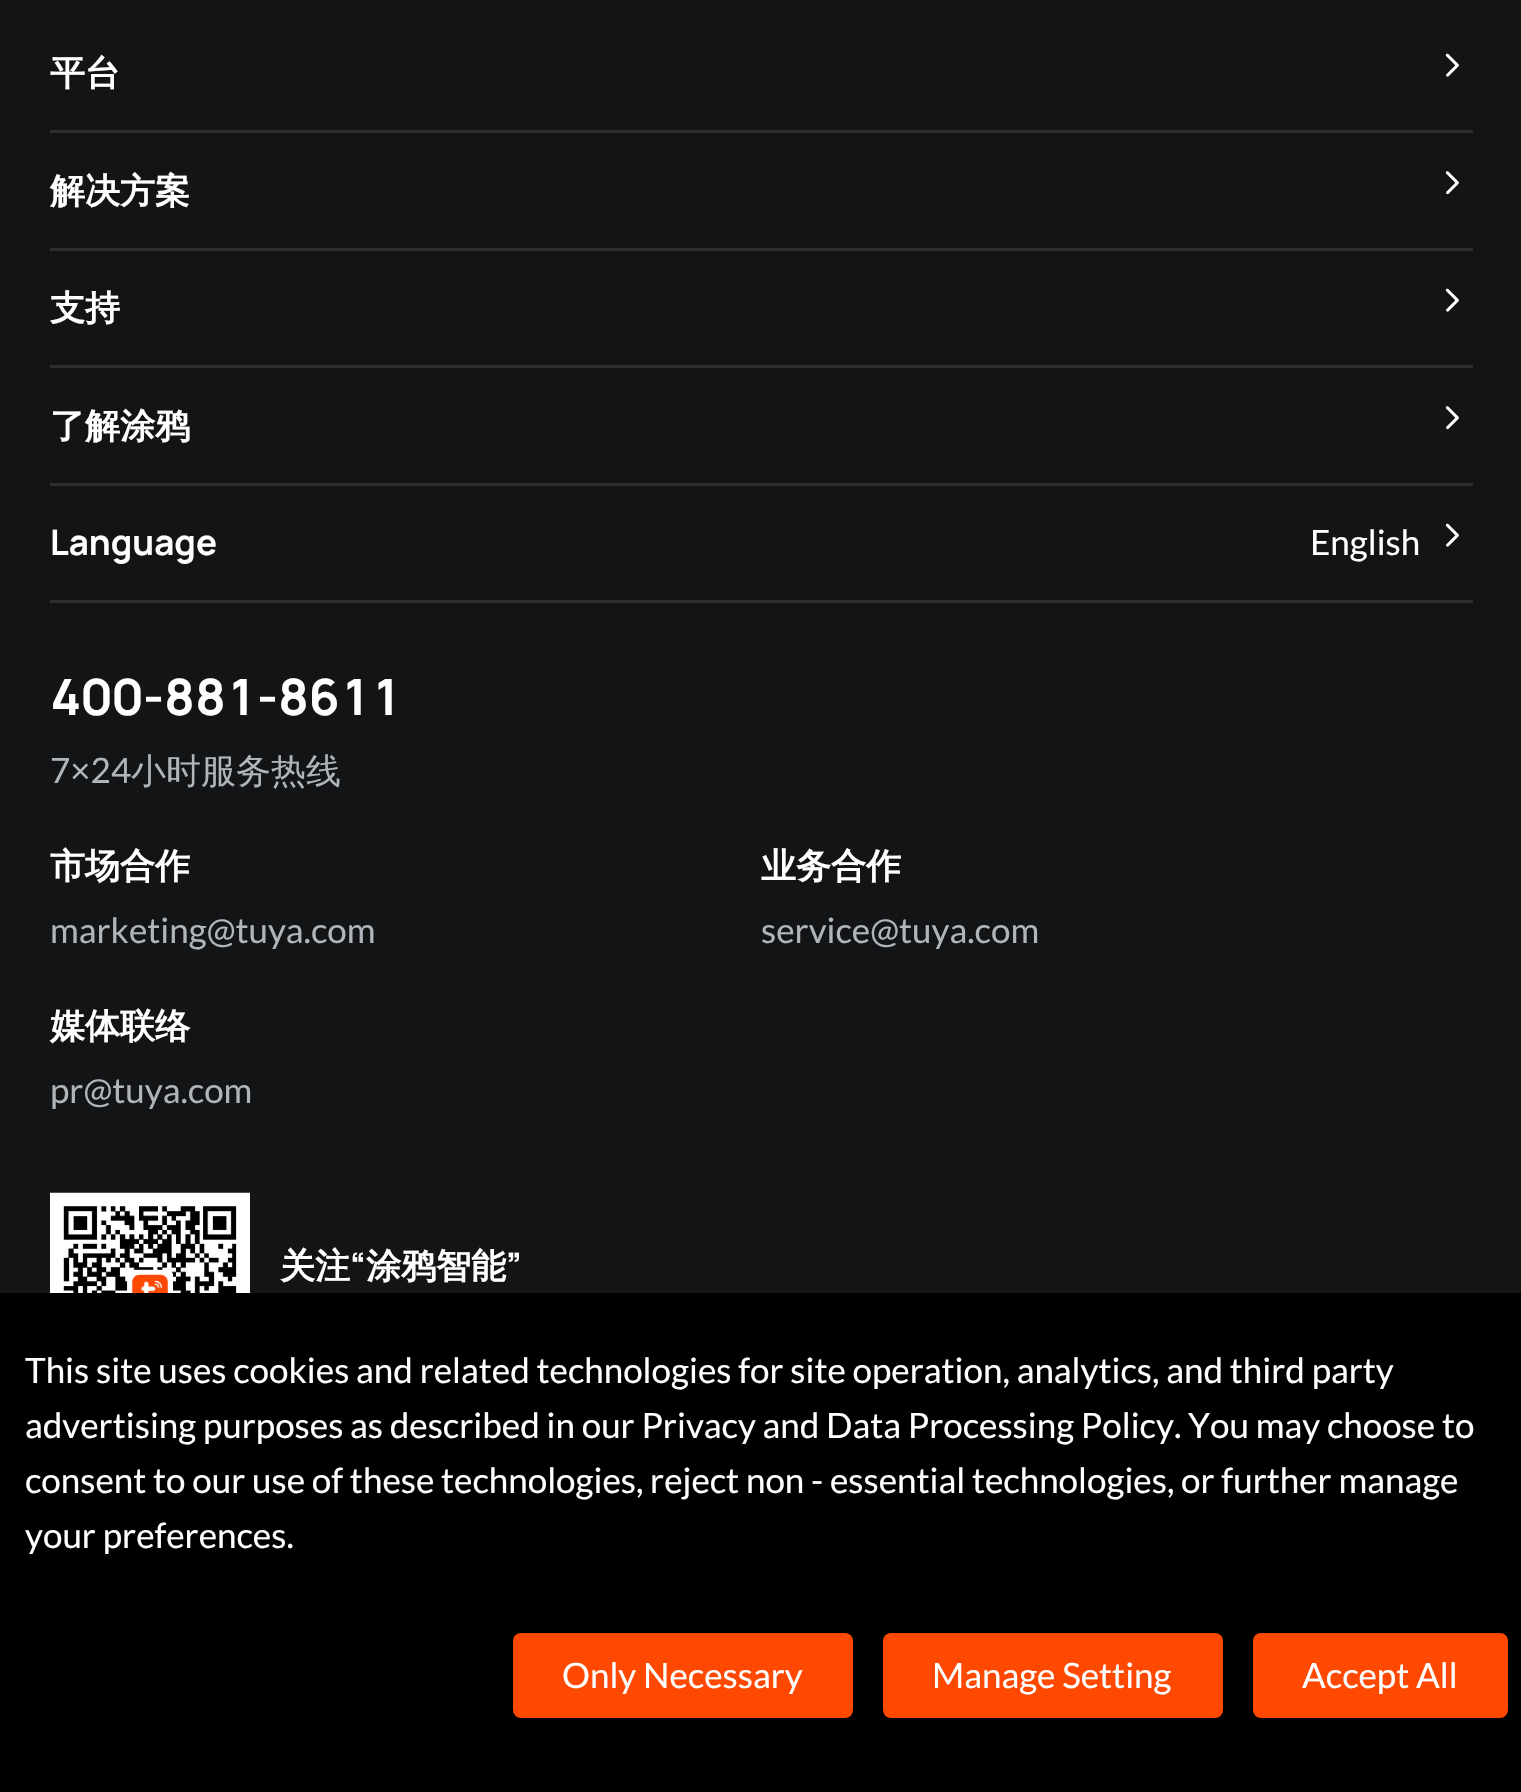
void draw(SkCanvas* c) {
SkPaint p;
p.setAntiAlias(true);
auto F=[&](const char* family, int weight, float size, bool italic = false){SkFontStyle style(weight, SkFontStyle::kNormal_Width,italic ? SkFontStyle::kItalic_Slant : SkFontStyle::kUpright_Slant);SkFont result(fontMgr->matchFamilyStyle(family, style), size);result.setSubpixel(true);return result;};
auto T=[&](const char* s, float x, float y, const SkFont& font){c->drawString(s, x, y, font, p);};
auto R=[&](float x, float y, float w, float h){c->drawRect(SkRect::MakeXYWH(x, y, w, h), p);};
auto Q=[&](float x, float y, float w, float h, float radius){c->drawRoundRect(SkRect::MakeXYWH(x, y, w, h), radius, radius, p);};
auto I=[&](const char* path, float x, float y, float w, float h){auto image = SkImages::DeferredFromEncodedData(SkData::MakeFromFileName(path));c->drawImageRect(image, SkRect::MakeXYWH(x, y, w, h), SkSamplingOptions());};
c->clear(0xff131415);
p.setColor(0xff2d2f31);
R(50,130,1423,3);
auto f1 = F("WenQuanYi Zen Hei",700,35);
p.setColor(0xffffffff);
T("平台",50,85,f1);
I("1.png",1445,53,14,24);
p.setColor(0xff2d2f31);
R(50,248,1423,3);
p.setColor(0xffffffff);
T("解决方案",50,203,f1);
I("2.png",1445,171,14,24);
p.setColor(0xff2d2f31);
R(50,365,1423,3);
p.setColor(0xffffffff);
T("支持",50,320,f1);
I("1.png",1445,288,14,24);
p.setColor(0xff2d2f31);
R(50,483,1423,3);
p.setColor(0xffffffff);
T("了解涂鸦",50,438,f1);
I("2.png",1445,406,14,24);
p.setColor(0xff2d2f31);
R(50,600,1423,3);
auto f2 = F("Manrope",700,35);
p.setColor(0xffffffff);
T("Language",50,555,f2);
auto f3 = F("Lato",400,35);
T("English",1310,555,f3);
I("1.png",1445,523,14,24);
auto f4 = F("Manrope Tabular",700,50);
T("400-881-8611",50,715,f4);
p.setColor(0xffb0b4bb);
T("7×24",50,783,f3);
auto f5 = F("WenQuanYi Zen Hei",500,35);
T("小时服务热线",131,783,f5);
p.setColor(0xffffffff);
T("市场合作",50,878,f1);
p.setColor(0xffb0b4bb);
T("marketing@tuya.com",50,943,f3);
p.setColor(0xffffffff);
T("业务合作",761,878,f1);
p.setColor(0xffb0b4bb);
T("service@tuya.com",761,943,f3);
p.setColor(0xffffffff);
T("媒体联络",50,1038,f1);
p.setColor(0xffb0b4bb);
T("pr@tuya.com",50,1103,f3);
I("3.png",50,1192,200,101);
p.setColor(0xffffffff);
T("关注",280,1278,f1);
T("“",350,1278,f2);
T("涂鸦智能",366,1278,f1);
T("”",506,1278,f2);
p.setColor(0xff000000);
R(0,1293,1521,499);
p.setColor(0xffffffff);
T("This site uses cookies and related technologies for site operation, analytics, and third party",25,1383,f3);
T("advertising purposes as described in our Privacy and Data Processing Policy. You may choose to",25,1438,f3);
T("consent to our use of these technologies, reject non - essential technologies, or further manage",25,1493,f3);
T("your preferences.",25,1548,f3);
p.setColor(0xffff4800);
Q(513,1633,340,85,8);
p.setColor(0xffffffff);
T("Only Necessary",562,1688,f3);
p.setColor(0xffff4800);
Q(883,1633,340,85,8);
p.setColor(0xffffffff);
T("Manage Setting",932,1688,f3);
p.setColor(0xffff4800);
Q(1253,1633,255,85,8);
p.setColor(0xffffffff);
T("Accept All",1302,1688,f3);
}
